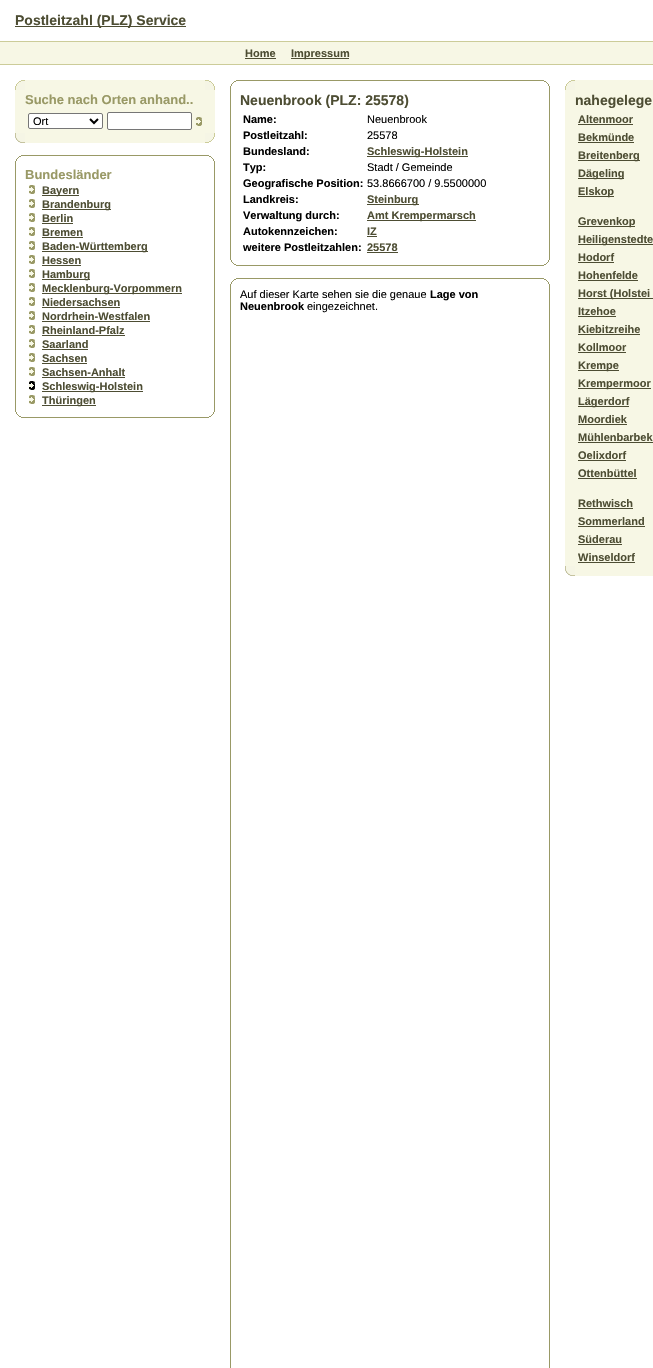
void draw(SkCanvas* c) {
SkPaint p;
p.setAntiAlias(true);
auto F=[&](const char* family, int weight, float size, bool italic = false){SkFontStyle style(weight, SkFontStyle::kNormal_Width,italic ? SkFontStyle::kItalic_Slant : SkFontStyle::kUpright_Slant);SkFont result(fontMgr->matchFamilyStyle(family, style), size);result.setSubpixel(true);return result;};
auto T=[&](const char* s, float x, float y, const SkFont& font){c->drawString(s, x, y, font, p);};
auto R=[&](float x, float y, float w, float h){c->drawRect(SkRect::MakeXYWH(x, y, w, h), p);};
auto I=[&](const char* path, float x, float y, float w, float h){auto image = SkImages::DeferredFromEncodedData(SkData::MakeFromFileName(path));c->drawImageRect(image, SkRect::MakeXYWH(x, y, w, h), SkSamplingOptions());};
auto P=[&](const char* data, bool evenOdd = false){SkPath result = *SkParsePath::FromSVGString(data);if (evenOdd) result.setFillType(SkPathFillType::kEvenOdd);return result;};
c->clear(0xffffffff);
p.setColor(0xff4d4d33);
R(15,26,171,1);
auto f1 = F("Liberation Sans",700,14);
T("Postleitzahl (PLZ) Service",15,25,f1);
p.setColor(0xffcccc99);
R(0,41,653,1);
p.setColor(0xfff7f7e5);
R(0,42,653,22);
auto f2 = F("Liberation Sans",700,11);
p.setColor(0xff4d4d33);
T("Home",245,57,f2);
R(245,58,31,1);
R(291,58,58,1);
T("Impressum",291,57,f2);
p.setColor(0xffcccc99);
R(0,64,653,1);
I("1.png",15,80,10,10);
p.setColor(0xfff7f7e5);
R(25,80,180,10);
I("2.png",205,80,10,10);
R(15,90,200,43);
auto f3 = F("Liberation Sans",700,13);
p.setColor(0xff999966);
T("Suche nach Orten anhand..",25,104,f3);
p.setColor(0xffffffff);
c->drawRoundRect(SkRect::MakeXYWH(28.5,113.5,74,15),1.5,1.5,p);
p.setStroke(true);
p.setStrokeWidth(1);
p.setColor(0xff767676);
c->drawRoundRect(SkRect::MakeXYWH(28.5,113.5,74,15),1.5,1.5,p);
p.setStrokeWidth(2);
p.setColor(0xff000000);
c->drawPath(P("M90 119l4 4l4-4"),p);
auto f4 = F("Liberation Sans",400,11);
p.setStroke(false);
T("Ort",33,125,f4);
p.setColor(0xffffffff);
c->drawRoundRect(SkRect::MakeXYWH(107.5,112.5,84,17),1.5,1.5,p);
p.setStroke(true);
p.setStrokeWidth(1);
p.setColor(0xff767676);
c->drawRoundRect(SkRect::MakeXYWH(107.5,112.5,84,17),1.5,1.5,p);
I("3.png",196,117,6,9);
I("4.png",15,133,10,10);
p.setStroke(false);
p.setColor(0xfff7f7e5);
R(25,133,180,10);
I("5.png",205,133,10,10);
I("6.png",15,155,10,10);
p.setColor(0xff999966);
R(25,155,180,1);
I("7.png",205,155,10,10);
R(15,165,1,243);
T("Bundesländer",25,179,f3);
I("3.png",29,185,6,9);
p.setColor(0xff4d4d33);
R(42,195,37,1);
T("Bayern",42,194,f2);
I("3.png",29,199,6,9);
R(42,209,69,1);
T("Brandenburg",42,208,f2);
I("3.png",29,213,6,9);
T("Berlin",42,222,f2);
R(42,223,31,1);
I("3.png",29,227,6,9);
T("Bremen",42,236,f2);
R(42,237,41,1);
I("3.png",29,241,6,9);
R(42,251,106,1);
T("Baden-Württemberg",42,250,f2);
I("3.png",29,255,6,9);
T("Hessen",42,264,f2);
R(42,265,39,1);
I("3.png",29,269,6,9);
R(42,279,48,1);
T("Hamburg",42,278,f2);
I("3.png",29,283,6,9);
R(42,293,140,1);
T("Mecklenburg-Vorpommern",42,292,f2);
I("3.png",29,297,6,9);
T("Niedersachsen",42,306,f2);
R(42,307,78,1);
I("3.png",29,311,6,9);
T("Nordrhein-Westfalen",42,320,f2);
R(42,321,108,1);
I("3.png",29,325,6,9);
T("Rheinland-Pfalz",42,334,f2);
R(42,335,83,1);
I("3.png",29,339,6,9);
T("Saarland",42,348,f2);
R(42,349,46,1);
I("3.png",29,353,6,9);
T("Sachsen",42,362,f2);
R(42,363,45,1);
I("3.png",29,367,6,9);
T("Sachsen-Anhalt",42,376,f2);
R(42,377,83,1);
I("8.png",29,381,6,9);
R(42,391,101,1);
T("Schleswig-Holstein",42,390,f2);
I("3.png",29,395,6,9);
R(42,405,54,1);
T("Thüringen",42,404,f2);
p.setColor(0xff999966);
R(214,165,1,243);
I("9.png",15,408,10,10);
R(25,417,180,1);
I("10.png",205,408,10,10);
I("6.png",230,80,10,10);
R(240,80,300,1);
I("7.png",540,80,10,10);
R(230,90,1,166);
p.setColor(0xff4d4d33);
T("Neuenbrook (PLZ: 25578)",240,105,f1);
p.setColor(0xff000000);
T("Name:",243,123,f2);
T("Neuenbrook",367,123,f4);
T("Postleitzahl:",243,139,f2);
T("25578",367,139,f4);
T("Bundesland:",243,155,f2);
p.setColor(0xff4d4d33);
R(367,156,101,1);
T("Schleswig-Holstein",367,155,f2);
p.setColor(0xff000000);
T("Typ:",243,171,f2);
T("Stadt / Gemeinde",367,171,f4);
T("Geografische Position:",243,187,f2);
T("53.8666700 / 9.5500000",367,187,f4);
T("Landkreis:",243,203,f2);
p.setColor(0xff4d4d33);
R(367,204,52,1);
T("Steinburg",367,203,f2);
p.setColor(0xff000000);
T("Verwaltung durch:",243,219,f2);
p.setColor(0xff4d4d33);
R(367,220,109,1);
T("Amt Krempermarsch",367,219,f2);
p.setColor(0xff000000);
T("Autokennzeichen:",243,235,f2);
p.setColor(0xff4d4d33);
T("IZ",367,235,f2);
R(367,236,10,1);
p.setColor(0xff000000);
T("weitere Postleitzahlen:",243,251,f2);
p.setColor(0xff4d4d33);
T("25578",367,251,f2);
R(367,252,31,1);
p.setColor(0xff999966);
R(549,90,1,166);
I("9.png",230,256,10,10);
R(240,265,300,1);
I("10.png",540,256,10,10);
I("6.png",230,278,10,10);
R(240,278,300,1);
I("7.png",540,278,10,10);
R(230,288,1,1080);
p.setColor(0xff000000);
T("Auf dieser Karte sehen sie die genaue",240,298,f4);
T("Lage von",430,298,f2);
T("Neuenbrook",240,310,f2);
T("eingezeichnet.",307,310,f4);
p.setColor(0xff999966);
R(549,288,1,1080);
I("1.png",565,80,10,10);
p.setColor(0xfff7f7e5);
R(575,80,78,10);
R(565,90,88,476);
p.setColor(0xff4d4d33);
T("nahegelege",575,105,f1);
T("Altenmoor",578,123,f2);
R(578,124,55,1);
T("Bekmünde",578,141,f2);
R(578,142,56,1);
R(578,160,62,1);
T("Breitenberg",578,159,f2);
R(578,178,46,1);
T("Dägeling",578,177,f2);
R(578,196,36,1);
T("Elskop",578,195,f2);
R(578,226,57,1);
T("Grevenkop",578,225,f2);
R(578,244,75,1);
T("Heiligenstedte",578,243,f2);
T("Hodorf",578,261,f2);
R(578,262,36,1);
T("Hohenfelde",578,279,f2);
R(578,280,60,1);
R(578,298,75,1);
T("Horst (Holstei",578,297,f2);
T("Itzehoe",578,315,f2);
R(578,316,38,1);
T("Kiebitzreihe",578,333,f2);
R(578,334,62,1);
T("Kollmoor",578,351,f2);
R(578,352,48,1);
R(578,370,41,1);
T("Krempe",578,369,f2);
R(578,388,73,1);
T("Krempermoor",578,387,f2);
R(578,406,51,1);
T("Lägerdorf",578,405,f2);
T("Moordiek",578,423,f2);
R(578,424,49,1);
T("Mühlenbarbek",578,441,f2);
R(578,442,75,1);
T("Oelixdorf",578,459,f2);
R(578,460,48,1);
T("Ottenbüttel",578,477,f2);
R(578,478,59,1);
T("Rethwisch",578,507,f2);
R(578,508,55,1);
T("Sommerland",578,525,f2);
R(578,526,67,1);
T("Süderau",578,543,f2);
R(578,544,44,1);
T("Winseldorf",578,561,f2);
R(578,562,57,1);
I("4.png",565,566,10,10);
p.setColor(0xfff7f7e5);
R(575,566,78,10);
}
